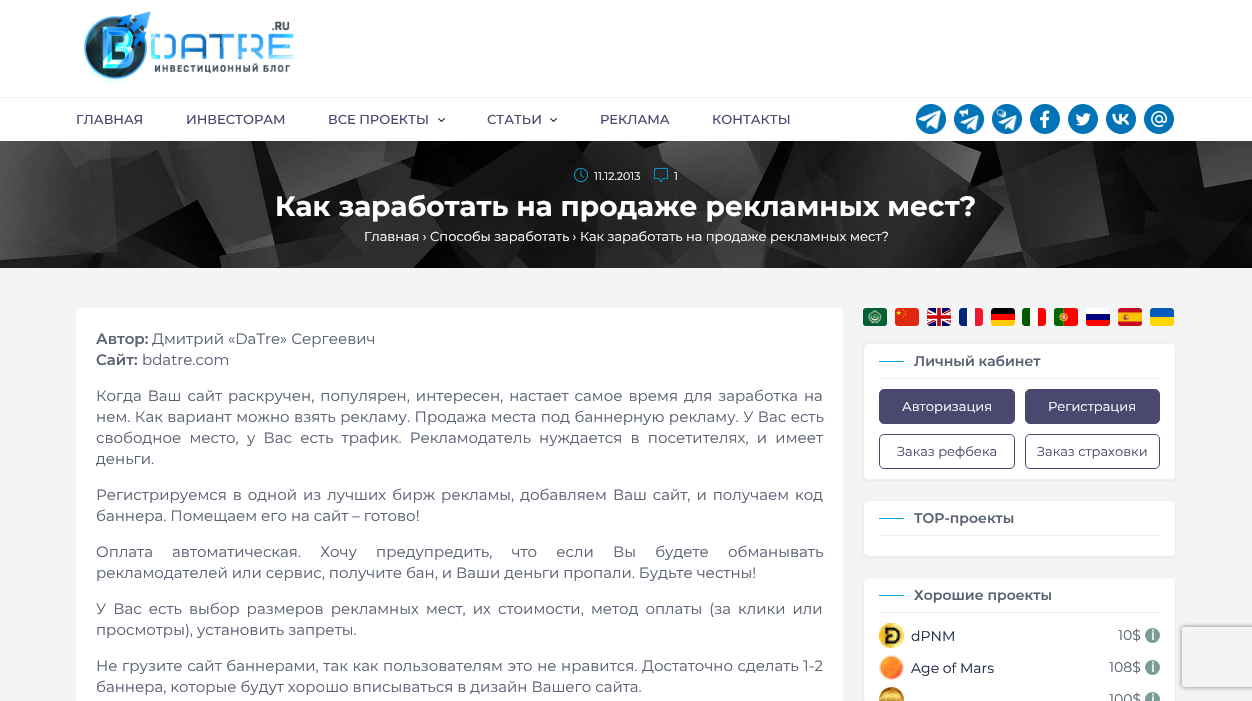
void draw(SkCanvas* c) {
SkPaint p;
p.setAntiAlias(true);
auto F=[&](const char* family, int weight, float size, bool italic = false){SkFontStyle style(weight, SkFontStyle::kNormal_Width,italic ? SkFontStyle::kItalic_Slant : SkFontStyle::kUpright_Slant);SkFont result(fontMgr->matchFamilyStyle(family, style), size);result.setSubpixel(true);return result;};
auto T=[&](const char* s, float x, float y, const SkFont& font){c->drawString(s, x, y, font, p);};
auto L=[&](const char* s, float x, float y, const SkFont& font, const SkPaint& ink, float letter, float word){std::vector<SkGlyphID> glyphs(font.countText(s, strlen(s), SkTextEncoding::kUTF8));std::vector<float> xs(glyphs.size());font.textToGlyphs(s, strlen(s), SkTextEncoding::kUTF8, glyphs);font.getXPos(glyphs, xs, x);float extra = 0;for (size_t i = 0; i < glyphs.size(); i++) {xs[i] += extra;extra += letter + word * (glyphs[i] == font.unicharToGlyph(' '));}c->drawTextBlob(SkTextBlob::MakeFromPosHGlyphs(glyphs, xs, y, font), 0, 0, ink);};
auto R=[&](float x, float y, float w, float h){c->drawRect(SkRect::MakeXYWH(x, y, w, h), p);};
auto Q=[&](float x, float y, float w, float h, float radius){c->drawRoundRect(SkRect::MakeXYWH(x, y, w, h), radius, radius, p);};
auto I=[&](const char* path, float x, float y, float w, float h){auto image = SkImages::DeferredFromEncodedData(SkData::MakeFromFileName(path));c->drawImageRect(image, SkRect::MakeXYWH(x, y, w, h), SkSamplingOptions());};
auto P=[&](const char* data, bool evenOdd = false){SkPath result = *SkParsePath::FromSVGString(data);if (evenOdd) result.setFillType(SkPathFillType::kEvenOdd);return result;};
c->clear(0xfff4f4f4);
p.setColor(0xffffffff);
R(0,0,1252,97);
I("1.png",82,11,213,74);
R(0,98,1252,43);
p.setColor(0xfff1f1f1);
R(0,97,1252,1);
auto f1 = F("Montserrat",500,13);
p.setColor(0xff4b4870);
T("ГЛАВНАЯ",76,124,f1);
T("ИНВЕСТОРАМ",186,124,f1);
T("ВСЕ ПРОЕКТЫ",328,124,f1);
I("2.png",438,118,7,4);
T("СТАТЬИ",487,124,f1);
I("2.png",550,118,7,4);
T("РЕКЛАМА",600,124,f1);
T("КОНТАКТЫ",712,124,f1);
I("3.png",916,104,30,30);
I("4.png",954,104,30,30);
I("5.png",992,104,30,30);
I("6.png",1030,104,30,30);
I("7.png",1068,104,30,30);
I("8.png",1106,104,30,30);
I("9.png",1144,104,30,30);
I("10.png",0,141,1252,127);
I("11.png",574,168,14,14);
auto f2 = F("Montserrat",400,11);
p.setColor(0xffffffff);
T("11.12.2013",594,180,f2);
I("12.png",654,168,14,14);
T("1",674,180,f2);
auto f3 = F("Montserrat",700,28);
T("Как заработать на продаже рекламных мест?",275,216,f3);
auto f4 = F("Montserrat",400,13);
T("Главная › Способы заработать › Как заработать на продаже рекламных мест?",364,241,f4);
Q(76,308,767,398,5);
auto f5 = F("Montserrat",600,15);
p.setColor(0xff596172);
T("Автор:",96,344,f5);
auto f6 = F("Montserrat",400,15);
T("Дмитрий «DaTre» Сергеевич",152,344,f6);
T("Сайт:",96,365,f5);
T("bdatre.com",142,365,f6);
L("Когда Ваш сайт раскручен, популярен, интересен, настает самое время для заработка на",96,401,f6,p,0,2);
L("нем. Как вариант можно взять рекламу. Продажа места под баннерную рекламу. У Вас есть",96,422,f6,p,0,.5);
L("свободное место, у Вас есть трафик. Рекламодатель нуждается в посетителях, и имеет",96,443,f6,p,0,4.25);
T("деньги.",96,464,f6);
L("Регистрируемся в одной из лучших бирж рекламы, добавляем Ваш сайт, и получаем код",96,500,f6,p,0,2);
T("баннера. Помещаем его на сайт – готово!",96,521,f6);
L("Оплата автоматическая. Хочу предупредить, что если Вы будете обманывать",96,557,f6,p,0,15.25);
T("рекламодателей или сервис, получите бан, и Ваши деньги пропали. Будьте честны!",96,578,f6);
L("У Вас есть выбор размеров рекламных мест, их стоимости, метод оплаты (за клики или",96,614,f6,p,0,3.1);
T("просмотры), установить запреты.",96,635,f6);
L("Не грузите сайт баннерами, так как пользователям это не нравится. Достаточно сделать 1-2",96,671,f6,p,0,.6);
T("баннера, которые будут хорошо вписываться в дизайн Вашего сайта.",96,692,f6);
I("13.png",863,308,24,18);
I("14.png",895,308,24,18);
I("15.png",927,308,24,18);
p.setColor(0xffffffff);
Q(959,308,24,18,3);
p.setColor(0xff00267f);
c->drawPath(P("M962 308h5v18h-5c-1.5 0-3-1.5-3-3v-12c0-1.5 1.5-3 3-3z"),p);
p.setColor(0xfff31830);
c->drawPath(P("M975 308h5c1.5 0 3 1.5 3 3v12c0 1.5-1.5 3-3 3h-5z"),p);
p.setColor(0xff000000);
c->drawPath(P("M994 308h18c1.5 0 3 1.5 3 3v3h-24v-3c0-1.5 1.5-3 3-3z"),p);
p.setColor(0xffff0000);
R(991,314,24,6);
p.setColor(0xffffcc00);
c->drawPath(P("M991 320h24v3c0 1.5-1.5 3-3 3h-18c-1.5 0-3-1.5-3-3z"),p);
p.setColor(0xffffffff);
Q(1022,308,24,18,3);
p.setColor(0xff005700);
c->drawPath(P("M1025 308h5v18h-5c-1.5 0-3-1.5-3-3v-12c0-1.5 1.5-3 3-3z"),p);
p.setColor(0xfffc0000);
c->drawPath(P("M1038 308h5c1.5 0 3 1.5 3 3v12c0 1.5-1.5 3-3 3h-5z"),p);
I("16.png",1054,308,24,18);
p.setColor(0xffffffff);
Q(1086,308,24,18,3);
p.setColor(0xff01017e);
c->drawPath(P("M1086 314h24v9c0 1.5-1.5 3-3 3h-18c-1.5 0-3-1.5-3-3z"),p);
p.setColor(0xfffe0101);
c->drawPath(P("M1086 320h24v3c0 1.5-1.5 3-3 3h-18c-1.5 0-3-1.5-3-3z"),p);
I("17.png",1118,308,24,18);
p.setColor(0xffffd500);
Q(1150,308,24,18,3);
p.setColor(0xff005bbb);
c->drawPath(P("M1153 308h18c1.5 0 3 1.5 3 3v6h-24v-6c0-1.5 1.5-3 3-3z"),p);
p.setColor(0x0d000000);
p.setMaskFilter(SkMaskFilter::MakeBlur(kNormal_SkBlurStyle, 1));
c->drawRoundRect(SkRect::MakeXYWH(863,344,313,137),5,5,p);
p.setMaskFilter(nullptr);
p.setColor(0xffffffff);
c->drawRoundRect(SkRect::MakeXYWH(863.5,343.5,312,136),4.5,4.5,p);
p.setStroke(true);
p.setStrokeWidth(1);
p.setColor(0xffeeeeee);
c->drawRoundRect(SkRect::MakeXYWH(863.5,343.5,312,136),4.5,4.5,p);
p.setStroke(false);
R(879,378,281,1);
p.setColor(0xff00abe1);
R(879,361,25,1);
auto f7 = F("Montserrat",600,14);
p.setColor(0xff596172);
T("Личный кабинет",914,366,f7);
p.setColor(0xff4b4870);
c->drawRoundRect(SkRect::MakeXYWH(879.5,389.5,135,34),4.5,4.5,p);
p.setStroke(true);
c->drawRoundRect(SkRect::MakeXYWH(879.5,389.5,135,34),4.5,4.5,p);
p.setStroke(false);
p.setColor(0xffffffff);
T("Авторизация",902,411,f4);
p.setColor(0xff4b4870);
c->drawRoundRect(SkRect::MakeXYWH(1025.5,389.5,134,34),4.5,4.5,p);
p.setStroke(true);
c->drawRoundRect(SkRect::MakeXYWH(1025.5,389.5,134,34),4.5,4.5,p);
p.setStroke(false);
p.setColor(0xffffffff);
T("Регистрация",1048,411,f4);
p.setStroke(true);
p.setColor(0xff4b4870);
c->drawRoundRect(SkRect::MakeXYWH(879.5,434.5,135,34),4.5,4.5,p);
p.setStroke(false);
T("Заказ рефбека",897,456,f4);
p.setStroke(true);
c->drawRoundRect(SkRect::MakeXYWH(1025.5,434.5,134,34),4.5,4.5,p);
p.setStroke(false);
T("Заказ страховки",1037,456,f4);
p.setColor(0x0d000000);
p.setMaskFilter(SkMaskFilter::MakeBlur(kNormal_SkBlurStyle, 1));
c->drawRoundRect(SkRect::MakeXYWH(863,501,313,57),5,5,p);
p.setMaskFilter(nullptr);
p.setColor(0xffffffff);
c->drawRoundRect(SkRect::MakeXYWH(863.5,500.5,312,56),4.5,4.5,p);
p.setStroke(true);
p.setColor(0xffeeeeee);
c->drawRoundRect(SkRect::MakeXYWH(863.5,500.5,312,56),4.5,4.5,p);
p.setStroke(false);
R(879,535,281,1);
p.setColor(0xff00abe1);
R(879,518,25,1);
p.setColor(0xff596172);
T("TOP-проекты",914,523,f7);
p.setColor(0xffffffff);
c->drawRoundRect(SkRect::MakeXYWH(863.5,577.5,312,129),4.5,4.5,p);
p.setStroke(true);
p.setColor(0xffeeeeee);
c->drawRoundRect(SkRect::MakeXYWH(863.5,577.5,312,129),4.5,4.5,p);
p.setStroke(false);
R(879,612,281,1);
p.setColor(0xff00abe1);
R(879,595,25,1);
p.setColor(0xff596172);
T("Хорошие проекты",914,600,f7);
I("18.png",879,623,25,25);
auto f8 = F("Montserrat",400,14);
p.setColor(0xff202647);
T("dPNM",911,641,f8);
p.setColor(0xff596172);
T("10$",1118,640,f8);
p.setColor(0xff7d9b95);
c->drawCircle(1152.5,635.5,7.5,p);
auto f9 = F("Montserrat",500,14);
p.setColor(0xffffffff);
T("i",1151,640,f9);
I("19.png",879,655,25,25);
p.setColor(0xff202647);
T("Age of Mars",911,673,f8);
p.setColor(0xff596172);
T("108$",1109,672,f8);
p.setColor(0xff7d9b95);
c->drawCircle(1152.5,667.5,7.5,p);
p.setColor(0xffffffff);
T("i",1151,672,f9);
I("20.png",879,687,25,14);
p.setColor(0xff596172);
T("100$",1109,704,f8);
p.setColor(0xff7d9b95);
c->drawCircle(1152.5,699.5,7.5,p);
p.setColor(0xffffffff);
T("i",1151,704,f9);
c->save();
c->clipPath(P("M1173 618h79v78h-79zm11 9h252c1 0 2 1 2 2v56c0 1-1 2-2 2h-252c-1 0-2-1-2-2v-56c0-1 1-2 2-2z",true),true);
p.setColor(0xff808080);
p.setMaskFilter(SkMaskFilter::MakeBlur(kNormal_SkBlurStyle, 2.5));
c->drawRoundRect(SkRect::MakeXYWH(1182,627,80,60),2,2,p);
p.setMaskFilter(nullptr);
c->restore();
}
